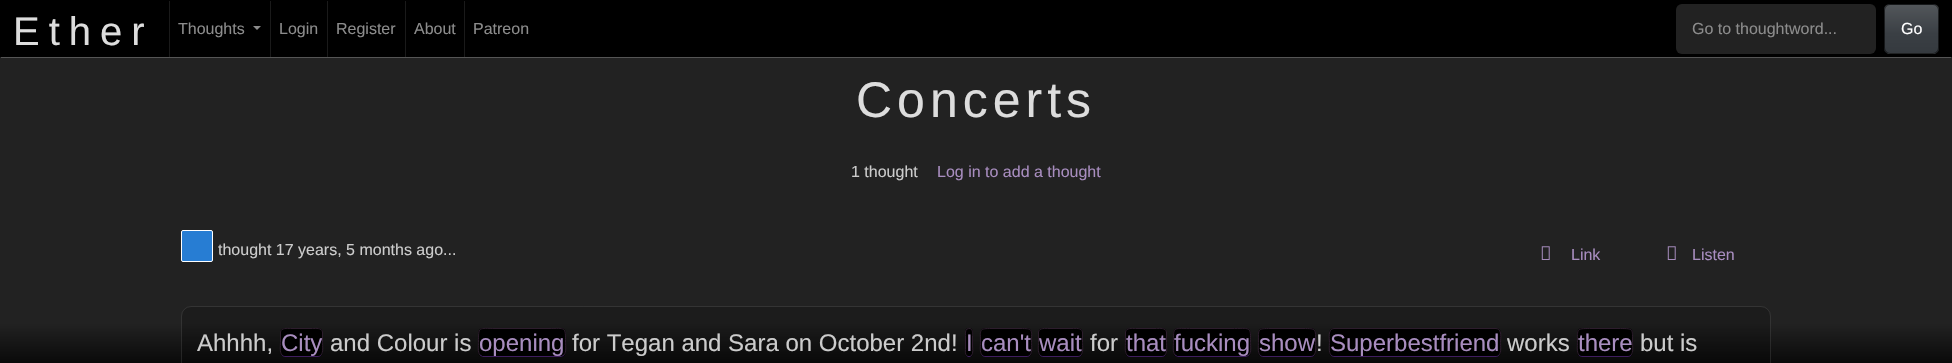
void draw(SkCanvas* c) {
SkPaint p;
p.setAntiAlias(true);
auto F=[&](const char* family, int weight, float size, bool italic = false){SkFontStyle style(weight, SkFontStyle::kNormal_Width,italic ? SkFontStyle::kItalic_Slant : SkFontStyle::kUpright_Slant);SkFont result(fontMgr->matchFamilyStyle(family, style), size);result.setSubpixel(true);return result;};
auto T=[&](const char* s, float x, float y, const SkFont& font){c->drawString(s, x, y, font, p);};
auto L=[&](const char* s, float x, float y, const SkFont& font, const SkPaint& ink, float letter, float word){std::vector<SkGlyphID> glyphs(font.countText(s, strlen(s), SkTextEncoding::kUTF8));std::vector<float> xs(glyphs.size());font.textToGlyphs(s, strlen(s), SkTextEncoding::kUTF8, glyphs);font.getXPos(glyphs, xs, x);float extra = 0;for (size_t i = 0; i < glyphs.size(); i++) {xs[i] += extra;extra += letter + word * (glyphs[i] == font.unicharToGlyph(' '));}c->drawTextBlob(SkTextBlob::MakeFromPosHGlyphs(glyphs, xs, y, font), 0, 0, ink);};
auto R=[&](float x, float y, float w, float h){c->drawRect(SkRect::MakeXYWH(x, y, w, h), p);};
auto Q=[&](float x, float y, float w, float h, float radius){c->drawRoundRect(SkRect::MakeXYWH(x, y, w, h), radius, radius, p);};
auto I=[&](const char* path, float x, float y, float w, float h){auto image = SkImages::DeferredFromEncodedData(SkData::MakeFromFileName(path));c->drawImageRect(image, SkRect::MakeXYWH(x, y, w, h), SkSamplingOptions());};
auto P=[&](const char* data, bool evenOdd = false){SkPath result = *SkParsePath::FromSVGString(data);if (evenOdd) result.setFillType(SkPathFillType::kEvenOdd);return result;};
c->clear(0xffffffff);
{
const SkColor colors[] = {0xff0a0a0a,0xff202020,0xff222222,0xff222222};
const float stops[] = {0,.1,.11,.98};
const SkPoint ends[] = {{976,363}, {976,0}};
p.setShader(SkGradientShader::MakeLinear(ends, colors, stops, 4, SkTileMode::kClamp));
p.setAlpha(255);
}
R(0,58,1952,305);
p.setShader(nullptr);
p.setColor(0xff000000);
R(0,0,1952,58);
p.setColor(0xff555555);
c->drawPath(P("M1952 58h-1952l1-1h1950z"),p);
p.setColor(0x99000000);
c->drawPath(P("M0 58v-58l1 1v56z"),p);
auto f1 = F("Liberation Sans",400,40);
p.setColor(0xffdddddd);
L("Ether",13,45,f1,p,9,0);
p.setColor(0xff1a1a1a);
R(169,1,1,56);
auto f2 = F("Liberation Sans",400,16);
p.setColor(0xff8c8c8c);
T("Thoughts",178,34,f2);
c->drawPath(P("M253 26h8l-4 4z"),p);
p.setColor(0xff1a1a1a);
R(270,1,1,56);
p.setColor(0xff8c8c8c);
T("Login",279,34,f2);
p.setColor(0xff1a1a1a);
R(327,1,1,56);
p.setColor(0xff8c8c8c);
T("Register",336,34,f2);
p.setColor(0xff1a1a1a);
R(405,1,1,56);
p.setColor(0xff8c8c8c);
T("About",414,34,f2);
p.setColor(0xff1a1a1a);
R(464,1,1,56);
p.setColor(0xff8c8c8c);
T("Patreon",473,34,f2);
p.setColor(0xff222222);
Q(1676,4,200,50,6);
p.setColor(0xff8c8c8c);
T("Go to thoughtword...",1692,34,f2);
c->save();
c->clipPath(P("M1890 4h43c3.5 0 6 2.5 6 6v38c0 3.5-2.5 6-6 6h-43c-3.5 0-6-2.5-6-6v-38c0-3.5 2.5-6 6-6z"),true);
{
const SkColor colors[] = {0xff52565a,0xff3a3f44,0xff353a3f};
const float stops[] = {0,.6,1};
const SkPoint ends[] = {{1912,-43}, {1912,5}};
p.setShader(SkGradientShader::MakeLinear(ends, colors, stops, 3, SkTileMode::kClamp));
p.setAlpha(255);
}
R(1884,4,55,1);
{
const SkColor colors[] = {0xff52565a,0xff3a3f44,0xff353a3f};
const float stops[] = {0,.6,1};
const SkPoint ends[] = {{1912,5}, {1912,53}};
p.setShader(SkGradientShader::MakeLinear(ends, colors, stops, 3, SkTileMode::kClamp));
p.setAlpha(255);
}
R(1884,5,55,48);
{
const SkColor colors[] = {0xff52565a,0xff3a3f44,0xff353a3f};
const float stops[] = {0,.6,1};
const SkPoint ends[] = {{1912,53}, {1912,101}};
p.setShader(SkGradientShader::MakeLinear(ends, colors, stops, 3, SkTileMode::kClamp));
p.setAlpha(255);
}
R(1884,53,55,1);
c->restore();
p.setStroke(true);
p.setStrokeWidth(1);
p.setShader(nullptr);
p.setColor(0x99000000);
c->drawRoundRect(SkRect::MakeXYWH(1884.5,4.5,54,49),5.5,5.5,p);
p.setStroke(false);
p.setColor(0xffffffff);
T("Go",1901,34,f2);
auto f3 = F("Liberation Sans",400,50);
p.setColor(0xffdddddd);
L("Concerts",856,117,f3,p,5,0);
p.setColor(0xffcccccc);
T("1 thought",851,177,f2);
p.setColor(0xffa88dbf);
T("Log in to add a thought",937,177,f2);
p.setColor(0xff277dd3);
c->drawRoundRect(SkRect::MakeXYWH(181.5,230.5,31,31),1.5,1.5,p);
p.setStroke(true);
p.setColor(0xffffffff);
c->drawRoundRect(SkRect::MakeXYWH(181.5,230.5,31,31),1.5,1.5,p);
p.setStroke(false);
p.setColor(0xffcccccc);
T("thought 17 years, 5 months ago...",218,255,f2);
I("1.png",1541,246,9,14);
p.setColor(0xffa88dbf);
T("Link",1571,260,f2);
I("1.png",1667,246,9,14);
T("Listen",1692,260,f2);
p.setColor(0x33000000);
Q(181,306,1590,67,10);
p.setStroke(true);
p.setColor(0x1affffff);
c->drawRoundRect(SkRect::MakeXYWH(181.5,306.5,1589,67),9.5,9.5,p);
auto f4 = F("Liberation Sans",400,24);
p.setStroke(false);
p.setColor(0xffcccccc);
T("Ahhhh,",197,351,f4);
p.setColor(0xff000000);
Q(280,328,43,29,5);
p.setStroke(true);
p.setColor(0xff3f1d5f);
c->drawPath(P("M321 355c-.5 1-2 1.5-3 1.5h-33c-1 0-2.5-.5-3-1.5"),p);
p.setColor(0xff2d1d2d);
c->drawPath(P("M282 355c-2.5-2.5-1.5-9.5-1.5-12.5v-10.5c1-4.5 6.5-3.5 10-3.5h22c3.5 0 9-1 10 3.5v10.5c0 3 1 10-1.5 12.5"),p);
p.setStroke(false);
p.setColor(0xffa88dbf);
T("City",281,351,f4);
p.setColor(0xffcccccc);
T("and Colour is",330,351,f4);
p.setColor(0xff000000);
Q(478,328,88,29,5);
p.setStroke(true);
p.setColor(0xff3f1d5f);
c->drawPath(P("M564 355l-2.5 1.5h-79l-2.5-1.5"),p);
p.setColor(0xff2d1d2d);
c->drawPath(P("M480 355c-2.5-2.5-1.5-9.5-1.5-12.5c0-16.5-.5-14 17.5-14h52c18 0 17.5-2.5 17.5 14c0 3 1 10-1.5 12.5"),p);
p.setStroke(false);
p.setColor(0xffa88dbf);
T("opening",479,351,f4);
p.setColor(0xffcccccc);
T("for Tegan and Sara on October 2nd!",572,351,f4);
p.setColor(0xff000000);
Q(965,328,8,29,4);
p.setStroke(true);
p.setColor(0xff3f1d5f);
c->drawPath(P("M971.5 355.5c-1.5 1.5-3.5 1.5-5 0"),p);
p.setColor(0xff2d1d2d);
c->drawPath(P("M966.5 355.5c-1.5-1.5-1-4-1-6v-14c0-2-.5-5 1.5-6.5c1-.5 2-.5 3-.5c3 1 2.5 4.5 2.5 7v10.5c0 2 1 7.5-1 9.5"),p);
p.setStroke(false);
p.setColor(0xffa88dbf);
T("I",966,351,f4);
p.setColor(0xff000000);
Q(980,328,52,29,5);
p.setStroke(true);
p.setColor(0xff3f1d5f);
c->drawPath(P("M1030 355c-.5 1-2 1.5-3 1.5h-42c-1 0-2.5-.5-3-1.5"),p);
p.setColor(0xff2d1d2d);
c->drawPath(P("M982 355c-2.5-2.5-1.5-9.5-1.5-12.5c0-13.5-2-14 11.5-14h28c13.5 0 11.5 .5 11.5 14c0 3 1 10-1.5 12.5"),p);
p.setStroke(false);
p.setColor(0xffa88dbf);
T("can't",981,351,f4);
p.setColor(0xff000000);
Q(1038,328,45,29,5);
p.setStroke(true);
p.setColor(0xff3f1d5f);
c->drawPath(P("M1081 355c-.5 1-2 1.5-3 1.5h-35c-1 0-2.5-.5-3-1.5"),p);
p.setColor(0xff2d1d2d);
c->drawPath(P("M1040 355c-2.5-2.5-1.5-9.5-1.5-12.5v-10.5c1-4.5 7-3.5 10.5-3.5h23c3.5 0 9.5-1 10.5 3.5v10.5c0 3 1 10-1.5 12.5"),p);
p.setStroke(false);
p.setColor(0xffa88dbf);
T("wait",1039,351,f4);
p.setColor(0xffcccccc);
T("for",1090,351,f4);
p.setColor(0xff000000);
Q(1125,328,42,29,5);
p.setStroke(true);
p.setColor(0xff3f1d5f);
c->drawPath(P("M1165 355c-.5 1-2 1.5-3 1.5h-32c-1 0-2.5-.5-3-1.5"),p);
p.setColor(0xff2d1d2d);
c->drawPath(P("M1127 355c-2.5-2.5-1.5-9.5-1.5-12.5v-10.5c1-4.5 6.5-3.5 10-3.5h21c3.5 0 9-1 10 3.5v10.5c0 3 1 10-1.5 12.5"),p);
p.setStroke(false);
p.setColor(0xffa88dbf);
T("that",1126,351,f4);
p.setColor(0xff000000);
Q(1173,328,78,29,5);
p.setStroke(true);
p.setColor(0xff3f1d5f);
c->drawPath(P("M1249 355l-2.5 1.5h-69l-2.5-1.5"),p);
p.setColor(0xff2d1d2d);
c->drawPath(P("M1175 355c-2.5-2.5-1.5-9.5-1.5-12.5c0-16-1-14 16-14h45c17 0 16-2 16 14c0 3 1 10-1.5 12.5"),p);
p.setStroke(false);
p.setColor(0xffa88dbf);
T("fucking",1174,351,f4);
p.setColor(0xff000000);
Q(1258,328,58,29,5);
p.setStroke(true);
p.setColor(0xff3f1d5f);
c->drawPath(P("M1314 355c-.5 1-2 1.5-3 1.5h-48c-1 0-2.5-.5-3-1.5"),p);
p.setColor(0xff2d1d2d);
c->drawPath(P("M1260 355c-2.5-2.5-1.5-9.5-1.5-12.5c0-14-1.5-14 12.5-14h32c14 0 12.5 0 12.5 14c0 3 1 10-1.5 12.5"),p);
p.setStroke(false);
p.setColor(0xffa88dbf);
T("show",1259,351,f4);
p.setColor(0xffcccccc);
T("!",1316,351,f4);
p.setColor(0xff000000);
Q(1329,328,172,29,5);
p.setStroke(true);
p.setColor(0xff3f1d5f);
c->drawPath(P("M1499 355c-.5 1-2 1.5-3 1.5h-162c-1 0-2.5-.5-3-1.5"),p);
p.setColor(0xff2d1d2d);
c->drawPath(P("M1331 355c-2.5-2.5-1.5-9.5-1.5-12.5c0-3.5-2-14 4.5-14h162c6.5 0 4.5 10.5 4.5 14c0 3 1 10-1.5 12.5"),p);
p.setStroke(false);
p.setColor(0xffa88dbf);
T("Superbestfriend",1330,351,f4);
p.setColor(0xffcccccc);
T("works",1507,351,f4);
p.setColor(0xff000000);
Q(1577,328,56,29,5);
p.setStroke(true);
p.setColor(0xff3f1d5f);
c->drawPath(P("M1631 355c-.5 1-2 1.5-3 1.5h-46c-1 0-2.5-.5-3-1.5"),p);
p.setColor(0xff2d1d2d);
c->drawPath(P("M1579 355c-2.5-2.5-1.5-9.5-1.5-12.5c0-13.5-1.5-14 12-14h31c13.5 0 12 .5 12 14c0 3 1 10-1.5 12.5"),p);
p.setStroke(false);
p.setColor(0xffa88dbf);
T("there",1578,351,f4);
p.setColor(0xffcccccc);
T("but is",1640,351,f4);
}
